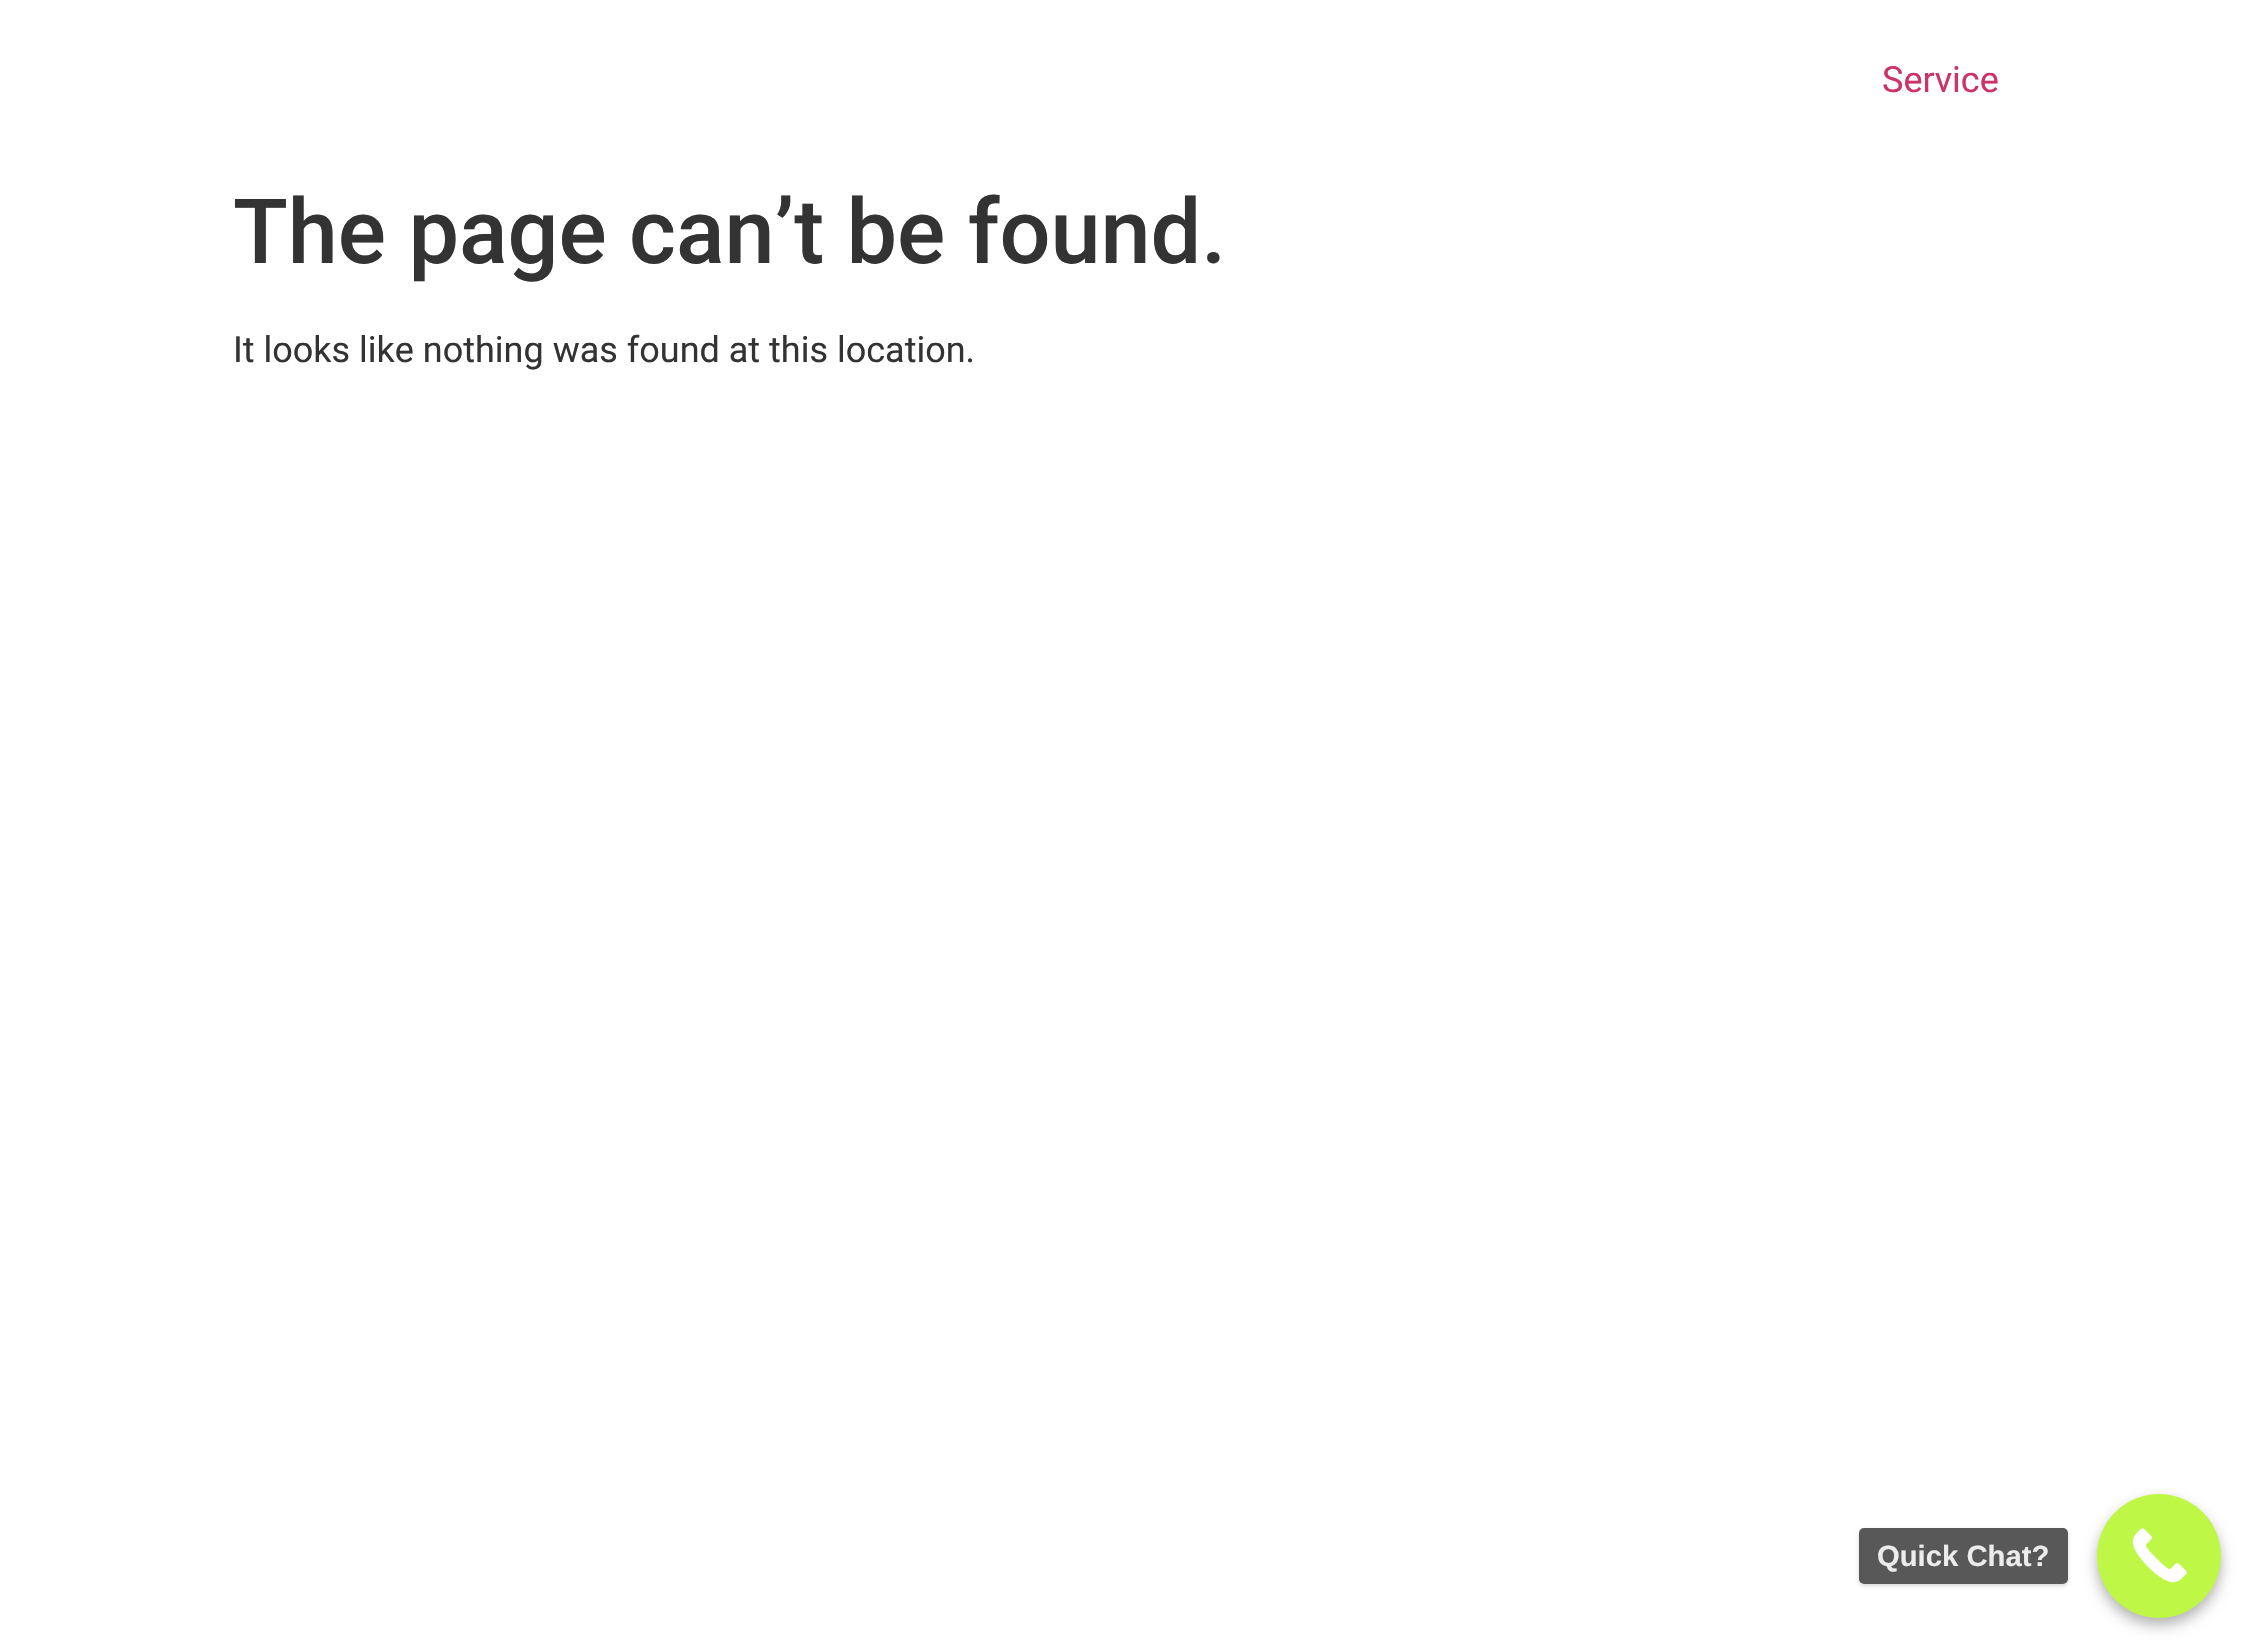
void draw(SkCanvas* c) {
SkPaint p;
p.setAntiAlias(true);
auto F=[&](const char* family, int weight, float size, bool italic = false){SkFontStyle style(weight, SkFontStyle::kNormal_Width,italic ? SkFontStyle::kItalic_Slant : SkFontStyle::kUpright_Slant);SkFont result(fontMgr->matchFamilyStyle(family, style), size);result.setSubpixel(true);return result;};
auto T=[&](const char* s, float x, float y, const SkFont& font){c->drawString(s, x, y, font, p);};
auto Q=[&](float x, float y, float w, float h, float radius){c->drawRoundRect(SkRect::MakeXYWH(x, y, w, h), radius, radius, p);};
auto I=[&](const char* path, float x, float y, float w, float h){auto image = SkImages::DeferredFromEncodedData(SkData::MakeFromFileName(path));c->drawImageRect(image, SkRect::MakeXYWH(x, y, w, h), SkSamplingOptions());};
auto P=[&](const char* data, bool evenOdd = false){SkPath result = *SkParsePath::FromSVGString(data);if (evenOdd) result.setFillType(SkPathFillType::kEvenOdd);return result;};
c->clear(0xffffffff);
auto f1 = F("Roboto",400,36);
p.setColor(0xffcc3366);
T("Service",1882,92,f1);
auto f2 = F("Roboto",500,90);
p.setColor(0xff333333);
T("The page can’t be found.",233,263,f2);
T("It looks like nothing was found at this location.",233,362,f1);
p.setColor(0x4d000000);
p.setMaskFilter(SkMaskFilter::MakeBlur(kNormal_SkBlurStyle, 7));
c->drawRoundRect(SkRect::MakeXYWH(2097,1501,124,124),62,62,p);
p.setMaskFilter(nullptr);
p.setColor(0xffbff747);
c->drawCircle(2159,1556,62,p);
I("1.png",2132,1528,55,55);
c->save();
c->clipPath(P("M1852 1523h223v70h-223zm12 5h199c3 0 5 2 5 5v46c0 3-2 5-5 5h-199c-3 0-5-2-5-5v-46c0-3 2-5 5-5z",true),true);
p.setColor(0x26000000);
p.setMaskFilter(SkMaskFilter::MakeBlur(kNormal_SkBlurStyle, 2));
c->drawRoundRect(SkRect::MakeXYWH(1859,1530,209,56),5,5,p);
p.setMaskFilter(nullptr);
c->restore();
p.setColor(0xe6464646);
Q(1859,1528,209,56,5);
auto f3 = F("Liberation Sans",700,29.25);
p.setColor(0xffececec);
T("Quick Chat?",1877,1566,f3);
}
